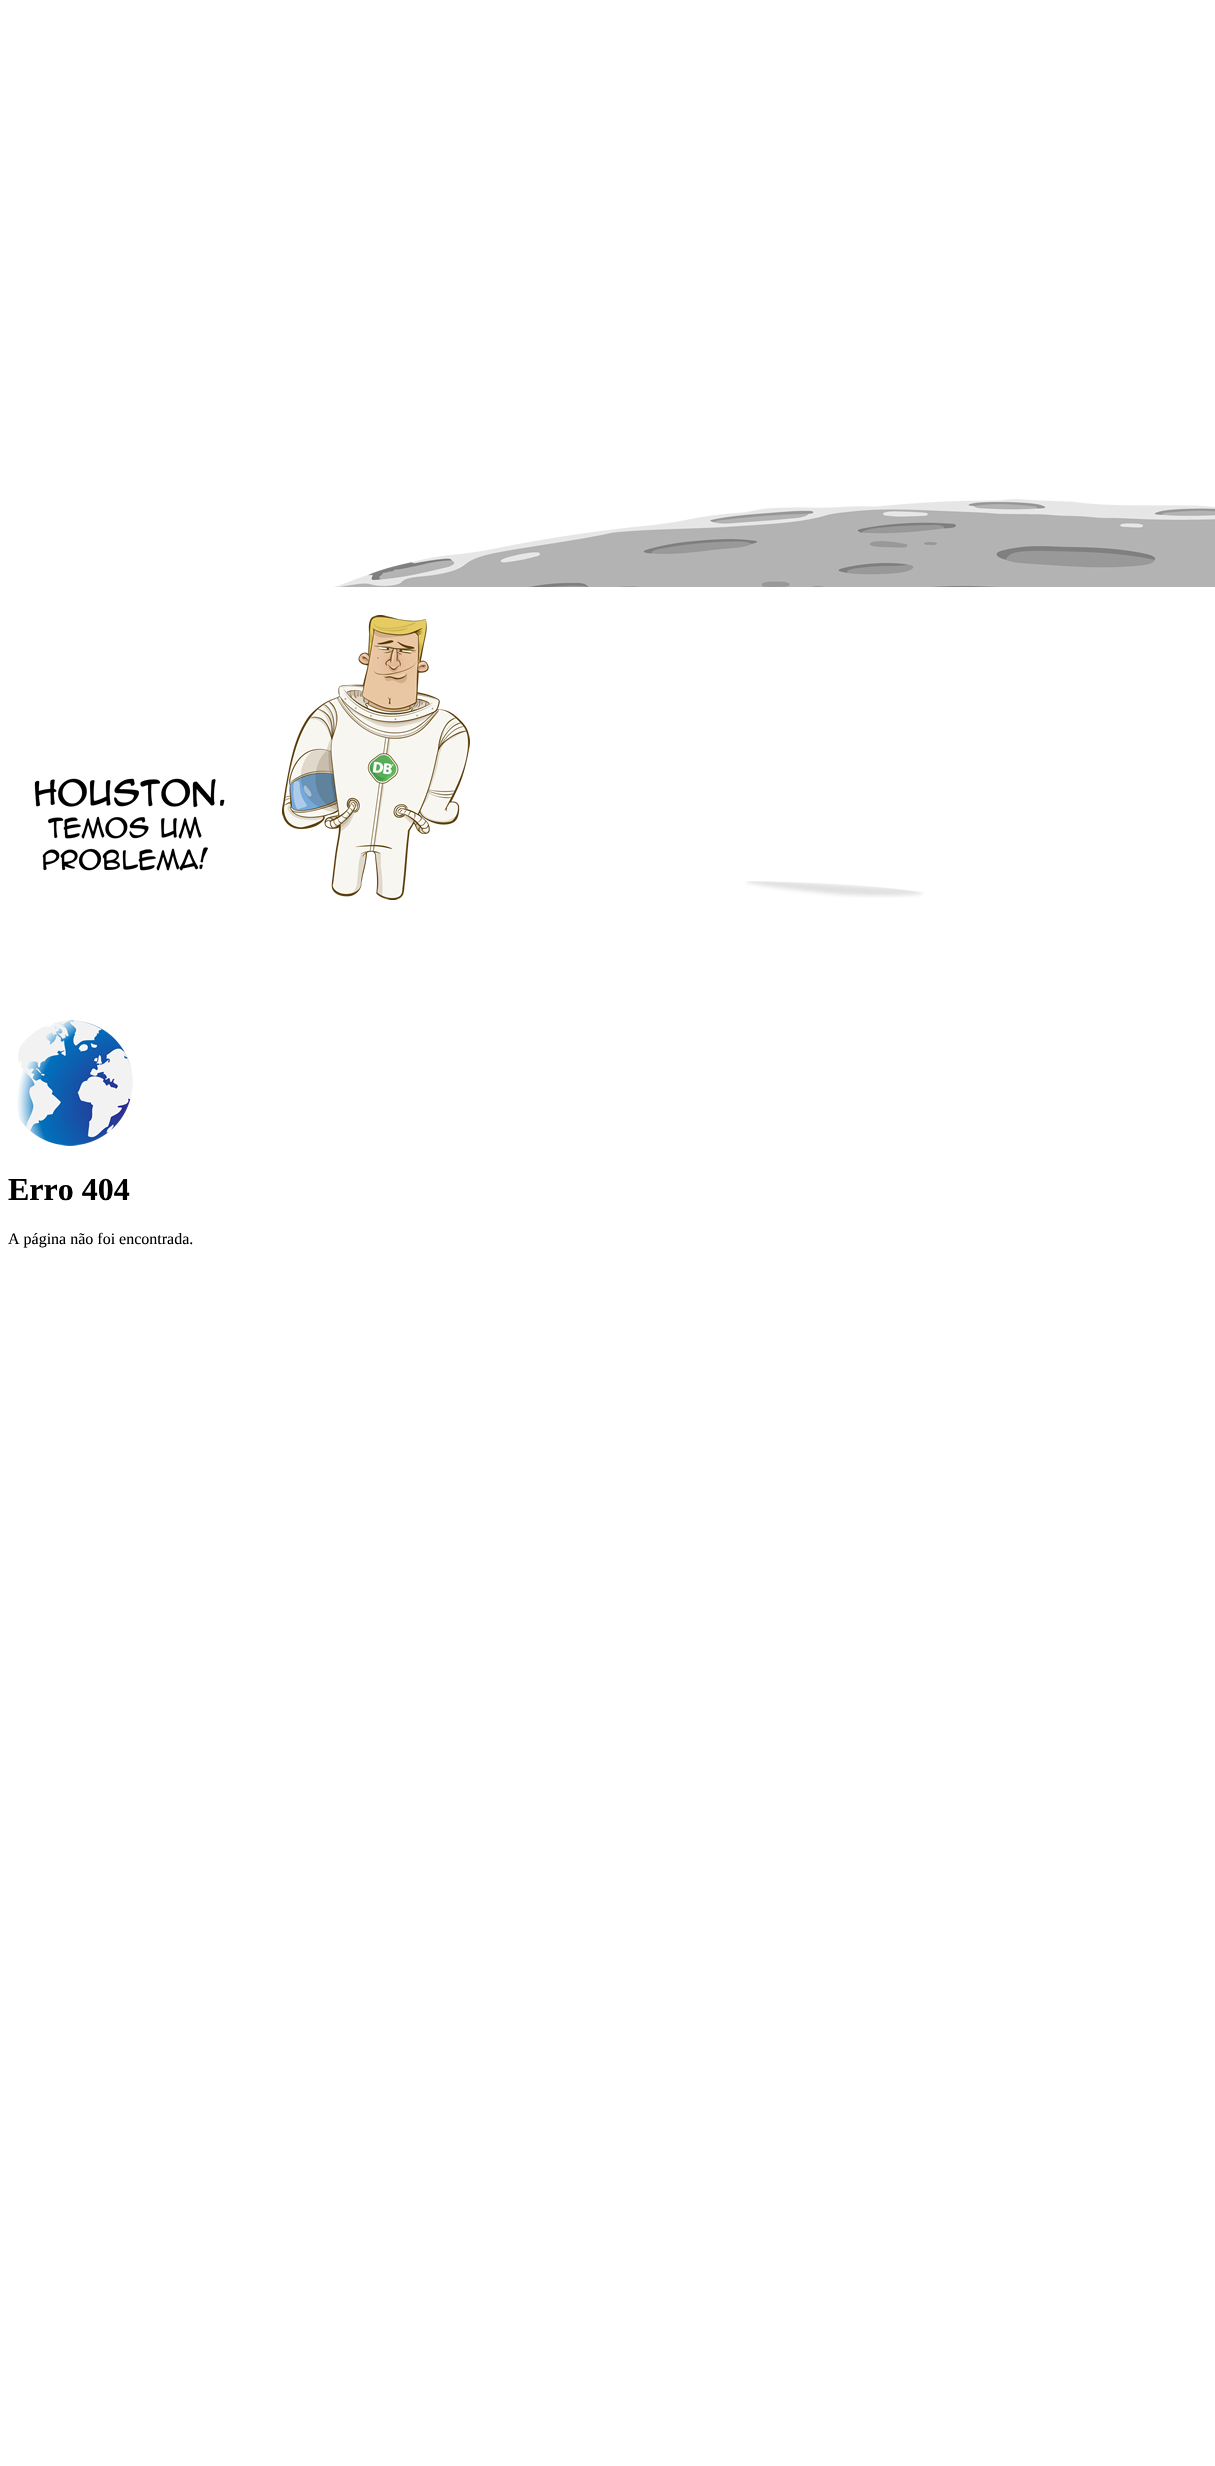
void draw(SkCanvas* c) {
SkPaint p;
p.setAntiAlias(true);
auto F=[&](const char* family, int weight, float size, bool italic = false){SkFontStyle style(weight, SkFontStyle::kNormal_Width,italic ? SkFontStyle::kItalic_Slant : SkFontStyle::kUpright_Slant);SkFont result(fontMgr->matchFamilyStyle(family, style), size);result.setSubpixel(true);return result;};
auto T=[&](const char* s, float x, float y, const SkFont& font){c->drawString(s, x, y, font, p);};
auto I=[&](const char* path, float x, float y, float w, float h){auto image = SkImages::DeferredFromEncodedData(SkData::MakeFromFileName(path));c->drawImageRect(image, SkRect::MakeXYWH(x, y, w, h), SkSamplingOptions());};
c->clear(0xffffffff);
I("1.png",334,499,881,88);
I("2.png",34,778,191,93);
I("3.png",282,615,188,285);
I("4.png",745,881,179,17);
I("5.png",17,1020,116,126);
auto f1 = F("Liberation Serif",700,32);
p.setColor(0xff000000);
T("Erro 404",8,1200,f1);
auto f2 = F("Liberation Serif",400,16);
T("A página não foi encontrada.",8,1244,f2);
}
